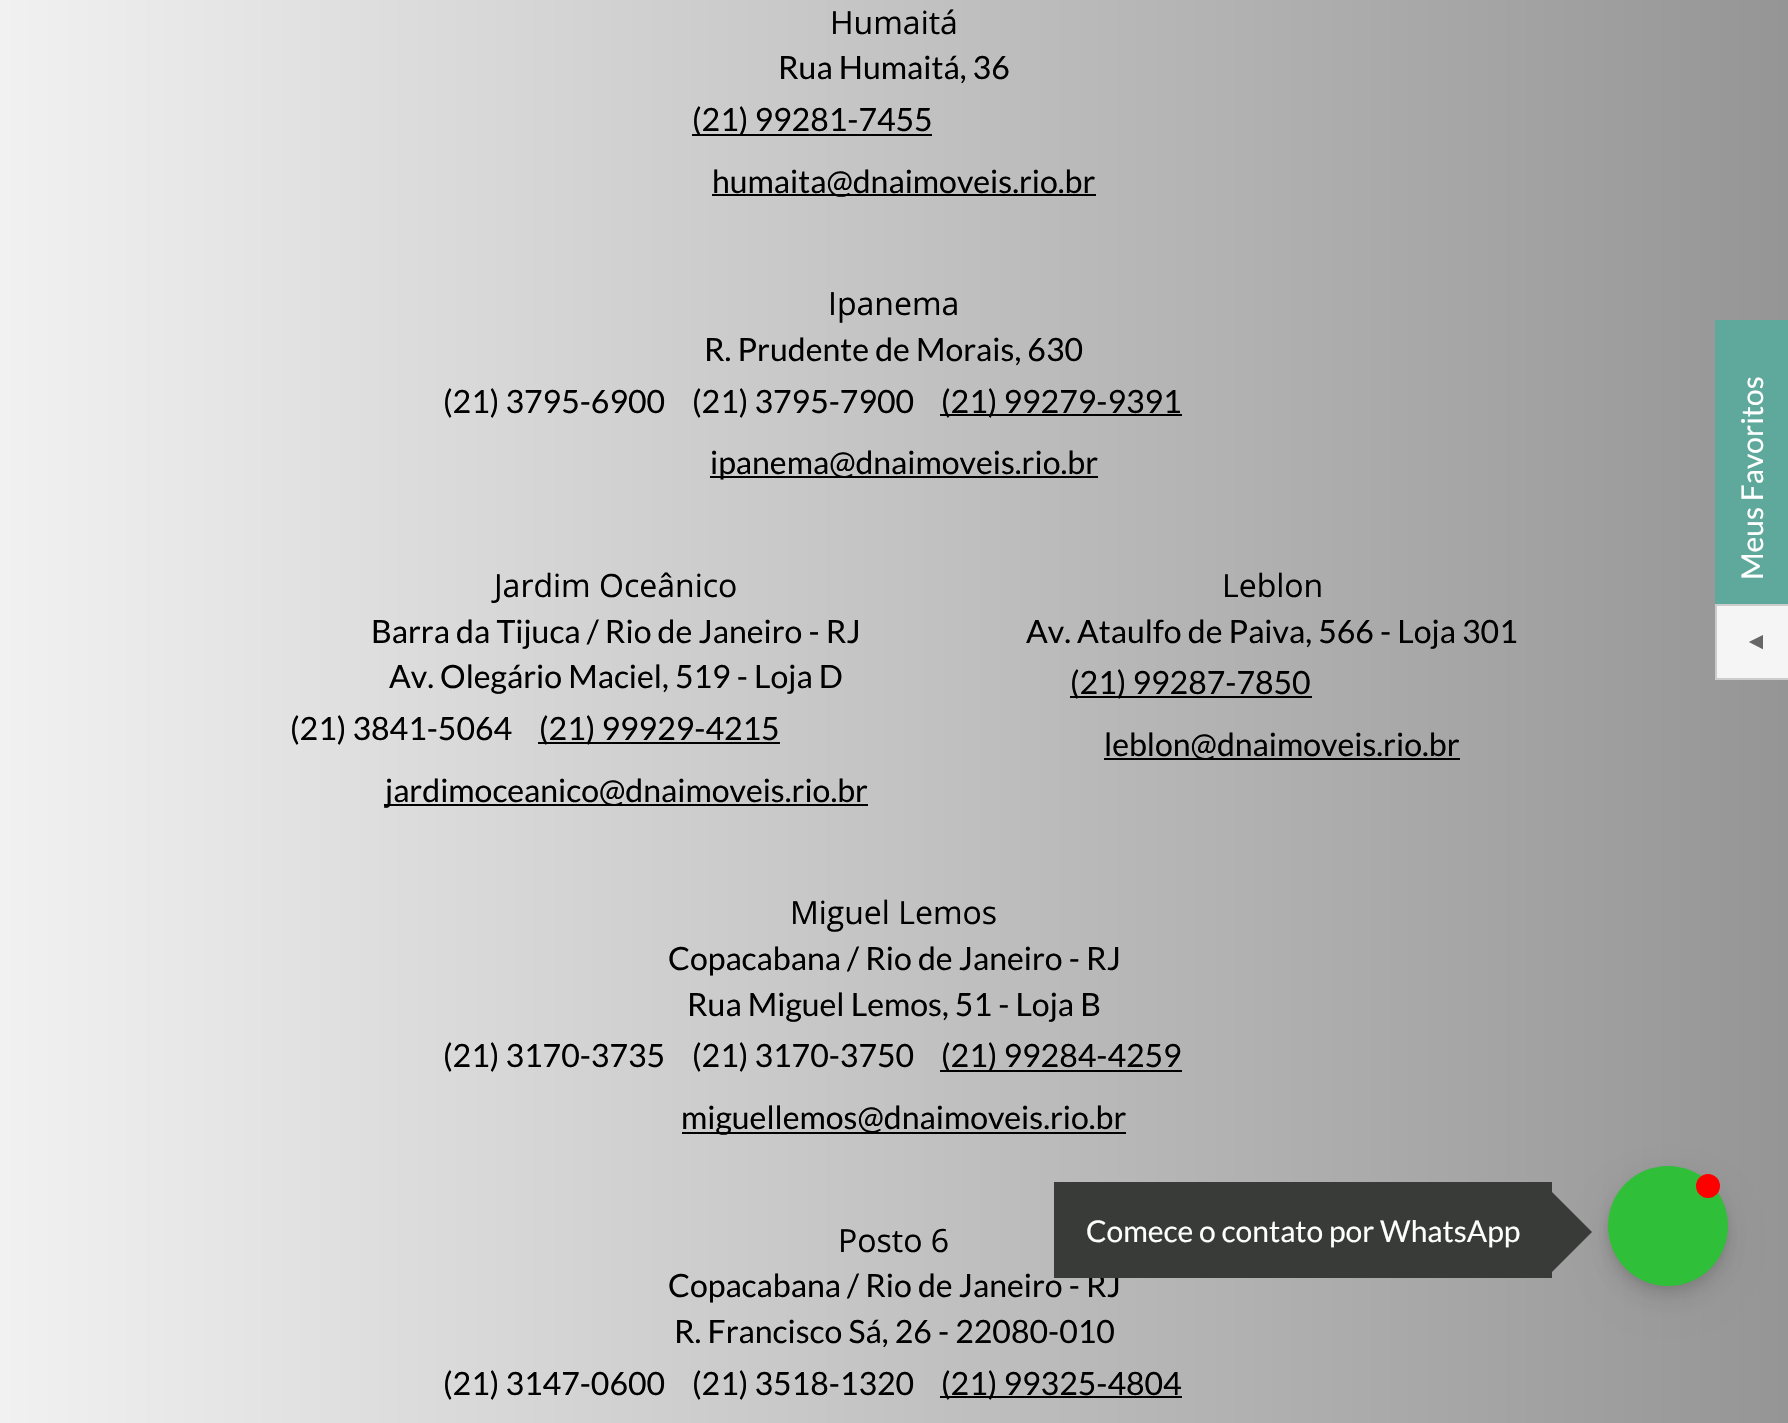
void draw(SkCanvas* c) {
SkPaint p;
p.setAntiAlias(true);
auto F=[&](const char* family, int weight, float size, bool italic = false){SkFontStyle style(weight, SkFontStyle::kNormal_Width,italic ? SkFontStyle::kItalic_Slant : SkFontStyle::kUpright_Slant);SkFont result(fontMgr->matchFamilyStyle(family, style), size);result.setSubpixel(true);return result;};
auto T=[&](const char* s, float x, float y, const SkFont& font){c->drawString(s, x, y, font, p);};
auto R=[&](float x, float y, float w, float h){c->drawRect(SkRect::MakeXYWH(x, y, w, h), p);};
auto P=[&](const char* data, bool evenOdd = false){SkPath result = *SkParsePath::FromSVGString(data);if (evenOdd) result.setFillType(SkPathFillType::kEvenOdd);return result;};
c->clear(0xffffffff);
{
const SkColor colors[] = {0xfff1f1f1,0xff959595};
const float stops[] = {0,1};
const SkPoint ends[] = {{0,430}, {1788,430}};
p.setShader(SkGradientShader::MakeLinear(ends, colors, stops, 2, SkTileMode::kClamp));
p.setAlpha(255);
}
R(0,0,1788,1423);
auto f1 = F("Open Sans",400,32);
p.setShader(nullptr);
p.setColor(0xff000000);
T("Humaitá",830,34,f1);
auto f2 = F("Lato",400,32);
T("Rua Humaitá, 36",778,79,f2);
R(692,134,240,2);
T("(21) 99281-7455",692,131,f2);
R(712,194,384,2);
T("humaita@dnaimoveis.rio.br",712,193,f2);
T("Ipanema",828,315,f1);
T("R. Prudente de Morais, 630",704,361,f2);
T("(21) 3795-6900",443,413,f2);
T("(21) 3795-7900",692,413,f2);
R(940,414,242,2);
T("(21) 99279-9391",941,413,f2);
R(710,476,388,2);
T("ipanema@dnaimoveis.rio.br",710,474,f2);
T("Jardim Oceânico",494,597,f1);
T("Barra da Tijuca / Rio de Janeiro - RJ",371,643,f2);
T("Av. Olegário Maciel, 519 - Loja D",389,688,f2);
T("(21) 3841-5064",290,740,f2);
R(538,742,242,2);
T("(21) 99929-4215",539,740,f2);
R(384,804,484,2);
T("jardimoceanico@dnaimoveis.rio.br",385,802,f2);
T("Leblon",1222,597,f1);
T("Av. Ataulfo de Paiva, 566 - Loja 301",1026,643,f2);
R(1070,696,242,2);
T("(21) 99287-7850",1070,694,f2);
R(1104,758,356,2);
T("leblon@dnaimoveis.rio.br",1104,756,f2);
T("Miguel Lemos",790,924,f1);
T("Copacabana / Rio de Janeiro - RJ",668,970,f2);
T("Rua Miguel Lemos, 51 - Loja B",687,1016,f2);
T("(21) 3170-3735",443,1067,f2);
T("(21) 3170-3750",692,1067,f2);
R(940,1070,242,2);
T("(21) 99284-4259",941,1067,f2);
R(682,1132,444,2);
T("miguellemos@dnaimoveis.rio.br",681,1129,f2);
T("Posto 6",838,1252,f1);
T("Copacabana / Rio de Janeiro - RJ",668,1297,f2);
T("R. Francisco Sá, 26 - 22080-010",674,1343,f2);
T("(21) 3147-0600",443,1395,f2);
T("(21) 3518-1320",692,1395,f2);
R(940,1396,242,2);
T("(21) 99325-4804",941,1395,f2);
p.setColor(0xff5ea99b);
R(1715,320,73,284);
auto f3 = F("Lato",400,30);
p.setColor(0xffffffff);
c->save();
c->rotate(-90,1763,580);
T("Meus Favoritos",1763,580,f3);
c->restore();
p.setColor(0xfff5f5f5);
R(1717,606,71,72);
p.setColor(0xffcccccc);
R(1715,604,2,76);
R(1715,604,73,2);
R(1715,678,73,2);
auto f4 = F("Liberation Sans",400,24);
p.setColor(0xff666666);
c->save();
c->rotate(-90,1763,654);
T("▲",1763,654,f4);
c->restore();
p.setColor(0x12000000);
p.setMaskFilter(SkMaskFilter::MakeBlur(kNormal_SkBlurStyle, 16));
c->drawRoundRect(SkRect::MakeXYWH(1608,1182,120,120),60,60,p);
p.setMaskFilter(nullptr);
p.setMaskFilter(SkMaskFilter::MakeBlur(kNormal_SkBlurStyle, 8));
c->drawRoundRect(SkRect::MakeXYWH(1608,1174,120,120),60,60,p);
p.setMaskFilter(nullptr);
p.setMaskFilter(SkMaskFilter::MakeBlur(kNormal_SkBlurStyle, 4));
c->drawRoundRect(SkRect::MakeXYWH(1608,1170,120,120),60,60,p);
p.setMaskFilter(nullptr);
p.setColor(0xff30bf39);
c->drawCircle(1668,1226,60,p);
p.setColor(0xffff0000);
c->drawCircle(1708,1186,12,p);
p.setColor(0xff393b39);
R(1054,1182,498,96);
p.setColor(0xffffffff);
T("Comece o contato por WhatsApp",1086,1242,f3);
p.setColor(0xff393b39);
c->drawPath(P("M1552 1272v-80l40 40z"),p);
}
